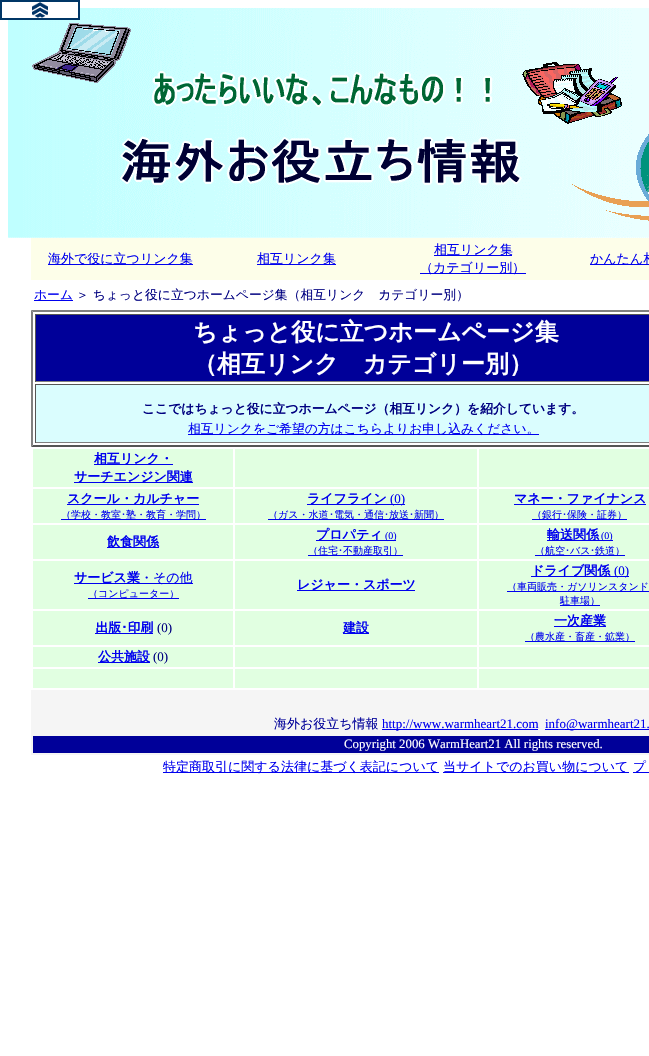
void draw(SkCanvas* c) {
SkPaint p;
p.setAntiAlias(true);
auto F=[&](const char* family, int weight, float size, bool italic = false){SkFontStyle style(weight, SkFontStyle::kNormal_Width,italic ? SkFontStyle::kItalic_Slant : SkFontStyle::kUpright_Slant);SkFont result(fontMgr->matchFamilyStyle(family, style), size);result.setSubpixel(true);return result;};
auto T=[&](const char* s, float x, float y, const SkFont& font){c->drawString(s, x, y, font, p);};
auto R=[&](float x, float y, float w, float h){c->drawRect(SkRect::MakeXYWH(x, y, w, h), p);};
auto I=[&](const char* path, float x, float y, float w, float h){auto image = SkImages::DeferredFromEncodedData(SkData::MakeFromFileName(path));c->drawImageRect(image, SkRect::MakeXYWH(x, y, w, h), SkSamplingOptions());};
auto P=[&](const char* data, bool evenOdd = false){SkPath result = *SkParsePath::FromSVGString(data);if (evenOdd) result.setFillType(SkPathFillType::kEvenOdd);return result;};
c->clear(0xffffffff);
I("2.png",8,8,641,230);
I("1.png",0,0,80,20);
p.setColor(0xfffdfee9);
R(31,238,618,42);
p.setColor(0xff0000ee);
R(48,264,145,1);
auto f1 = F("WenQuanYi Zen Hei",500,13);
T("海外で役に立つリンク集",48,263,f1);
R(257,264,79,1);
T("相互リンク集",257,263,f1);
R(434,255,78,1);
T("相互リンク集",434,254,f1);
R(420,273,106,1);
T("（カテゴリー別）",420,272,f1);
R(590,264,59,1);
T("かんたん相",590,263,f1);
R(34,300,39,1);
auto f2 = F("WenQuanYi Zen Hei",500,12.8);
T("ホーム",34,299,f2);
p.setColor(0xff000080);
T("＞ ちょっと役に立つホームページ集（相互リンク　カテゴリー別）",76,299,f2);
p.setColor(0xff808080);
c->drawPath(P("M31 310h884l-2 2h-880z"),p);
p.setColor(0xff555555);
c->drawPath(P("M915 447h-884l2-2h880z"),p);
p.setColor(0xff808080);
c->drawPath(P("M31 447v-137l2 2v133z"),p);
p.setColor(0xff000099);
R(36,315,613,66);
p.setColor(0xff555555);
R(35,314,614,1);
p.setColor(0xff808080);
R(35,381,614,1);
p.setColor(0xff555555);
R(35,314,1,68);
auto f3 = F("WenQuanYi Zen Hei",700,24);
p.setColor(0xffffffff);
T("ちょっと役に立つホームページ集",193,340,f3);
T("（相互リンク　カテゴリー別）",193,372,f3);
p.setColor(0xffdafdfe);
R(36,385,613,57);
p.setColor(0xff555555);
R(35,384,614,1);
p.setColor(0xff808080);
R(35,442,614,1);
p.setColor(0xff555555);
R(35,384,1,59);
auto f4 = F("WenQuanYi Zen Hei",700,12.8);
p.setColor(0xff000080);
T("ここではちょっと役に立つホームページ（相互リンク）を紹介しています。",142,413,f4);
p.setColor(0xff0000ee);
R(188,434,351,1);
T("相互リンクをご希望の方はこちらよりお申し込みください。",188,433,f2);
p.setColor(0xffe1ffe1);
R(33,449,200,38);
p.setColor(0xff0000ee);
R(94,464,79,1);
auto f5 = F("WenQuanYi Zen Hei",700,13);
T("相互リンク・",94,463,f5);
R(74,482,119,1);
T("サーチエンジン関連",74,481,f5);
p.setColor(0xffe1ffe1);
R(235,449,242,38);
R(479,449,170,38);
R(33,489,200,34);
p.setColor(0xff0000ee);
R(67,504,132,1);
T("スクール・カルチャー",67,503,f5);
R(61,519,145,1);
auto f6 = F("WenQuanYi Zen Hei",500,10);
T("（学校・教室",61,518,f6);
auto f7 = F("IPAPGothic",400,10);
T("･",121,518,f7);
T("塾・教育・学問）",126,518,f6);
p.setColor(0xffe1ffe1);
R(235,489,242,34);
p.setColor(0xff0000ee);
R(307,504,98,1);
T("ライフライン",307,503,f5);
auto f8 = F("Liberation Serif",400,13);
T("(0)",390,503,f8);
R(268,519,176,1);
T("（ガス・水道",268,518,f6);
T("･",329,518,f7);
T("電気・通信",334,518,f6);
T("･",384,518,f7);
T("放送",389,518,f6);
T("･",409,518,f7);
T("新聞）",414,518,f6);
p.setColor(0xffe1ffe1);
R(479,489,170,34);
p.setColor(0xff0000ee);
R(514,504,132,1);
T("マネー・ファイナンス",514,503,f5);
R(532,519,95,1);
T("（銀行",532,518,f6);
T("･",562,518,f7);
T("保険・証券）",567,518,f6);
p.setColor(0xffe1ffe1);
R(33,525,200,34);
p.setColor(0xff0000ee);
R(107,547,52,1);
T("飲食関係",107,546,f5);
p.setColor(0xffe1ffe1);
R(235,525,242,34);
p.setColor(0xff0000ee);
R(316,540,80,1);
T("プロパティ",316,539,f5);
auto f9 = F("Liberation Serif",400,10);
T("(0)",385,539,f9);
R(308,555,95,1);
T("（住宅",308,554,f6);
T("･",338,554,f7);
T("不動産取引）",343,554,f6);
p.setColor(0xffe1ffe1);
R(479,525,170,34);
p.setColor(0xff0000ee);
R(547,540,66,1);
T("輸送関係",547,539,f5);
T("(0)",601,539,f9);
R(535,555,90,1);
T("（航空",535,554,f6);
T("･",565,554,f7);
T("バス",570,554,f6);
T("･",590,554,f7);
T("鉄道）",595,554,f6);
p.setColor(0xffe1ffe1);
R(33,561,200,48);
p.setColor(0xff0000ee);
R(74,583,119,1);
T("サービス業",74,582,f5);
T("・その他",140,582,f1);
R(88,598,91,1);
T("（コンピューター）",88,597,f6);
p.setColor(0xffe1ffe1);
R(235,561,242,48);
p.setColor(0xff0000ee);
R(297,590,118,1);
T("レジャー・スポーツ",297,589,f5);
p.setColor(0xffe1ffe1);
R(479,561,170,48);
p.setColor(0xff0000ee);
R(531,576,79,1);
T("ドライブ関係",531,575,f5);
R(610,576,19,1);
T("(0)",614,575,f8);
R(507,591,142,1);
T("（車両販売・ガソリンスタンド",507,590,f6);
R(560,605,40,1);
T("駐車場）",560,604,f6);
p.setColor(0xffe1ffe1);
R(33,611,200,34);
p.setColor(0xff0000ee);
R(95,633,58,1);
auto f10 = F("IPAPGothic",700,13);
T("出版･印刷",95,632,f10);
p.setColor(0xff000080);
T("(0)",157,632,f8);
p.setColor(0xffe1ffe1);
R(235,611,242,34);
p.setColor(0xff0000ee);
R(343,633,26,1);
T("建設",343,632,f5);
p.setColor(0xffe1ffe1);
R(479,611,170,34);
p.setColor(0xff0000ee);
R(554,626,52,1);
T("一次産業",554,625,f5);
R(525,641,110,1);
T("（農水産・畜産・鉱業）",525,640,f6);
p.setColor(0xffe1ffe1);
R(33,647,200,20);
p.setColor(0xff0000ee);
R(98,662,52,1);
T("公共施設",98,661,f5);
p.setColor(0xff000080);
T("(0)",153,661,f8);
p.setColor(0xffe1ffe1);
R(235,647,242,20);
R(479,647,170,20);
R(33,669,200,19);
R(235,669,242,19);
R(479,669,170,19);
p.setColor(0xfff5f5f5);
R(31,690,618,65);
p.setColor(0xff000099);
T("海外お役立ち情報",274,728,f1);
p.setColor(0xff0000ee);
R(382,729,156,1);
T("http://www.warmheart21.com",382,728,f8);
R(545,729,104,1);
T("info@warmheart21.",545,728,f8);
p.setColor(0xff000099);
R(33,736,616,17);
auto f11 = F("Liberation Serif",400,12.8);
p.setColor(0xffffffff);
T("Copyright 2006 WarmHeart21 All rights reserved.",344,748,f11);
p.setColor(0xff0000ee);
R(163,772,276,1);
T("特定商取引に関する法律に基づく表記について",163,771,f1);
R(443,772,186,1);
T("当サイトでのお買い物について",443,771,f1);
R(633,772,16,1);
T("プ",633,771,f2);
}
